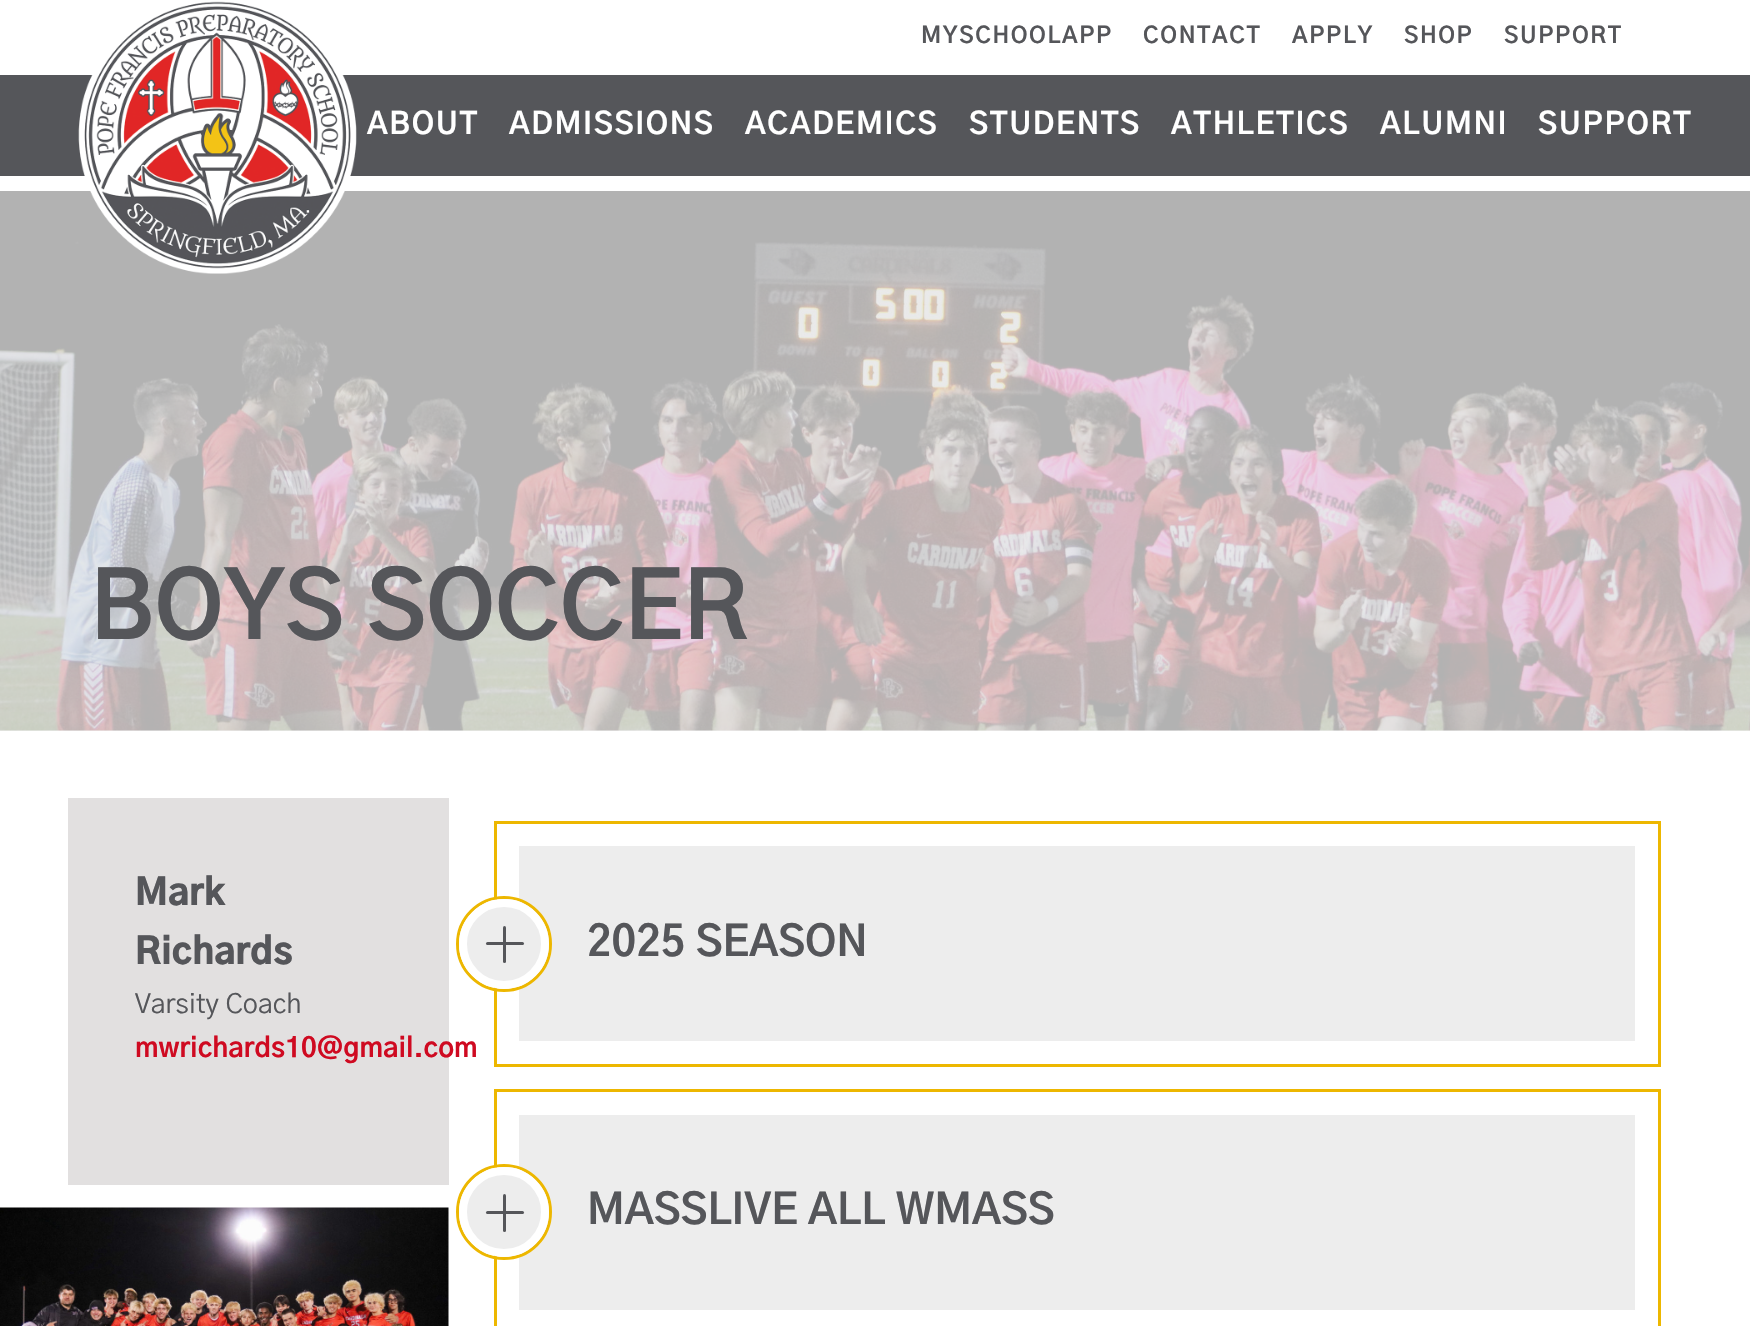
void draw(SkCanvas* c) {
SkPaint p;
p.setAntiAlias(true);
auto F=[&](const char* family, int weight, float size, bool italic = false){SkFontStyle style(weight, SkFontStyle::kNormal_Width,italic ? SkFontStyle::kItalic_Slant : SkFontStyle::kUpright_Slant);SkFont result(fontMgr->matchFamilyStyle(family, style), size);result.setSubpixel(true);return result;};
auto T=[&](const char* s, float x, float y, const SkFont& font){c->drawString(s, x, y, font, p);};
auto L=[&](const char* s, float x, float y, const SkFont& font, const SkPaint& ink, float letter, float word){std::vector<SkGlyphID> glyphs(font.countText(s, strlen(s), SkTextEncoding::kUTF8));std::vector<float> xs(glyphs.size());font.textToGlyphs(s, strlen(s), SkTextEncoding::kUTF8, glyphs);font.getXPos(glyphs, xs, x);float extra = 0;for (size_t i = 0; i < glyphs.size(); i++) {xs[i] += extra;extra += letter + word * (glyphs[i] == font.unicharToGlyph(' '));}c->drawTextBlob(SkTextBlob::MakeFromPosHGlyphs(glyphs, xs, y, font), 0, 0, ink);};
auto R=[&](float x, float y, float w, float h){c->drawRect(SkRect::MakeXYWH(x, y, w, h), p);};
auto Q=[&](float x, float y, float w, float h, float radius){c->drawRoundRect(SkRect::MakeXYWH(x, y, w, h), radius, radius, p);};
auto I=[&](const char* path, float x, float y, float w, float h){auto image = SkImages::DeferredFromEncodedData(SkData::MakeFromFileName(path));c->drawImageRect(image, SkRect::MakeXYWH(x, y, w, h), SkSamplingOptions());};
c->clear(0xffffffff);
p.setColor(0xfff2f2f2);
R(0,730,1750,1);
p.setColor(0xff55565a);
R(0,75,1750,101);
auto f1 = F("Gothic A1",700,22.5);
L("MYSCHOOLAPP",921,43,f1,p,1.6,0);
L("CONTACT",1143,43,f1,p,1.6,0);
L("APPLY",1292,43,f1,p,1.6,0);
L("SHOP",1404,43,f1,p,1.6,0);
L("SUPPORT",1504,43,f1,p,1.6,0);
I("2.png",0,191,1750,540);
I("1.png",78,1,279,273);
auto f2 = F("Gothic A1",700,30);
p.setColor(0xffffffff);
L("ABOUT",367,134,f2,p,1.6,0);
L("ADMISSIONS",509,134,f2,p,1.6,0);
L("ACADEMICS",745,134,f2,p,1.6,0);
L("STUDENTS",969,134,f2,p,1.6,0);
L("ATHLETICS",1171,134,f2,p,1.6,0);
L("ALUMNI",1380,134,f2,p,1.6,0);
L("SUPPORT",1538,134,f2,p,1.6,0);
auto f3 = F("Gothic A1",700,92.75);
p.setColor(0xff55565a);
T("BOYS SOCCER",90,639,f3);
p.setColor(0xffe2e0e0);
R(68,798,381,387);
auto f4 = F("Gothic A1",900,36);
p.setColor(0xff55565a);
T("Mark",135,905,f4);
T("Richards",135,964,f4);
auto f5 = F("Gothic A1",400,27);
T("Varsity Coach",135,1013,f5);
auto f6 = F("Gothic A1",700,27);
p.setColor(0xffcf0a21);
T("mwrichards10@gmail.com",135,1057,f6);
I("3.png",0,1207,449,119);
p.setStroke(true);
p.setStrokeWidth(3);
p.setColor(0xffedb700);
c->drawRect(SkRect::MakeXYWH(495.5,822.5,1164,243),p);
p.setStroke(false);
p.setColor(0xffededed);
R(519,846,1116,195);
p.setStroke(true);
p.setColor(0xffedb700);
c->drawCircle(504,944,46.5,p);
p.setStroke(false);
p.setColor(0xffededed);
c->drawCircle(504,944,41,p);
p.setStroke(true);
p.setStrokeWidth(8);
p.setColor(0xffffffff);
c->drawCircle(504,944,41,p);
p.setStroke(false);
p.setColor(0xff55565a);
Q(503,926,3,37,1.5);
Q(486,942,38,3,1.5);
auto f7 = F("Gothic A1",700,42);
T("2025 SEASON",587,956,f7);
p.setStroke(true);
p.setStrokeWidth(3);
p.setColor(0xffedb700);
c->drawRect(SkRect::MakeXYWH(495.5,1090.5,1164,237),p);
p.setStroke(false);
p.setColor(0xffededed);
R(519,1115,1116,195);
p.setStroke(true);
p.setColor(0xffedb700);
c->drawCircle(504,1212,46.5,p);
p.setStroke(false);
p.setColor(0xffededed);
c->drawCircle(504,1212,41,p);
p.setStroke(true);
p.setStrokeWidth(8);
p.setColor(0xffffffff);
c->drawCircle(504,1212,41,p);
p.setStroke(false);
p.setColor(0xff55565a);
Q(503,1194,3,38,1.5);
Q(486,1211,38,3,1.5);
T("MASSLIVE ALL WMASS",587,1224,f7);
}
